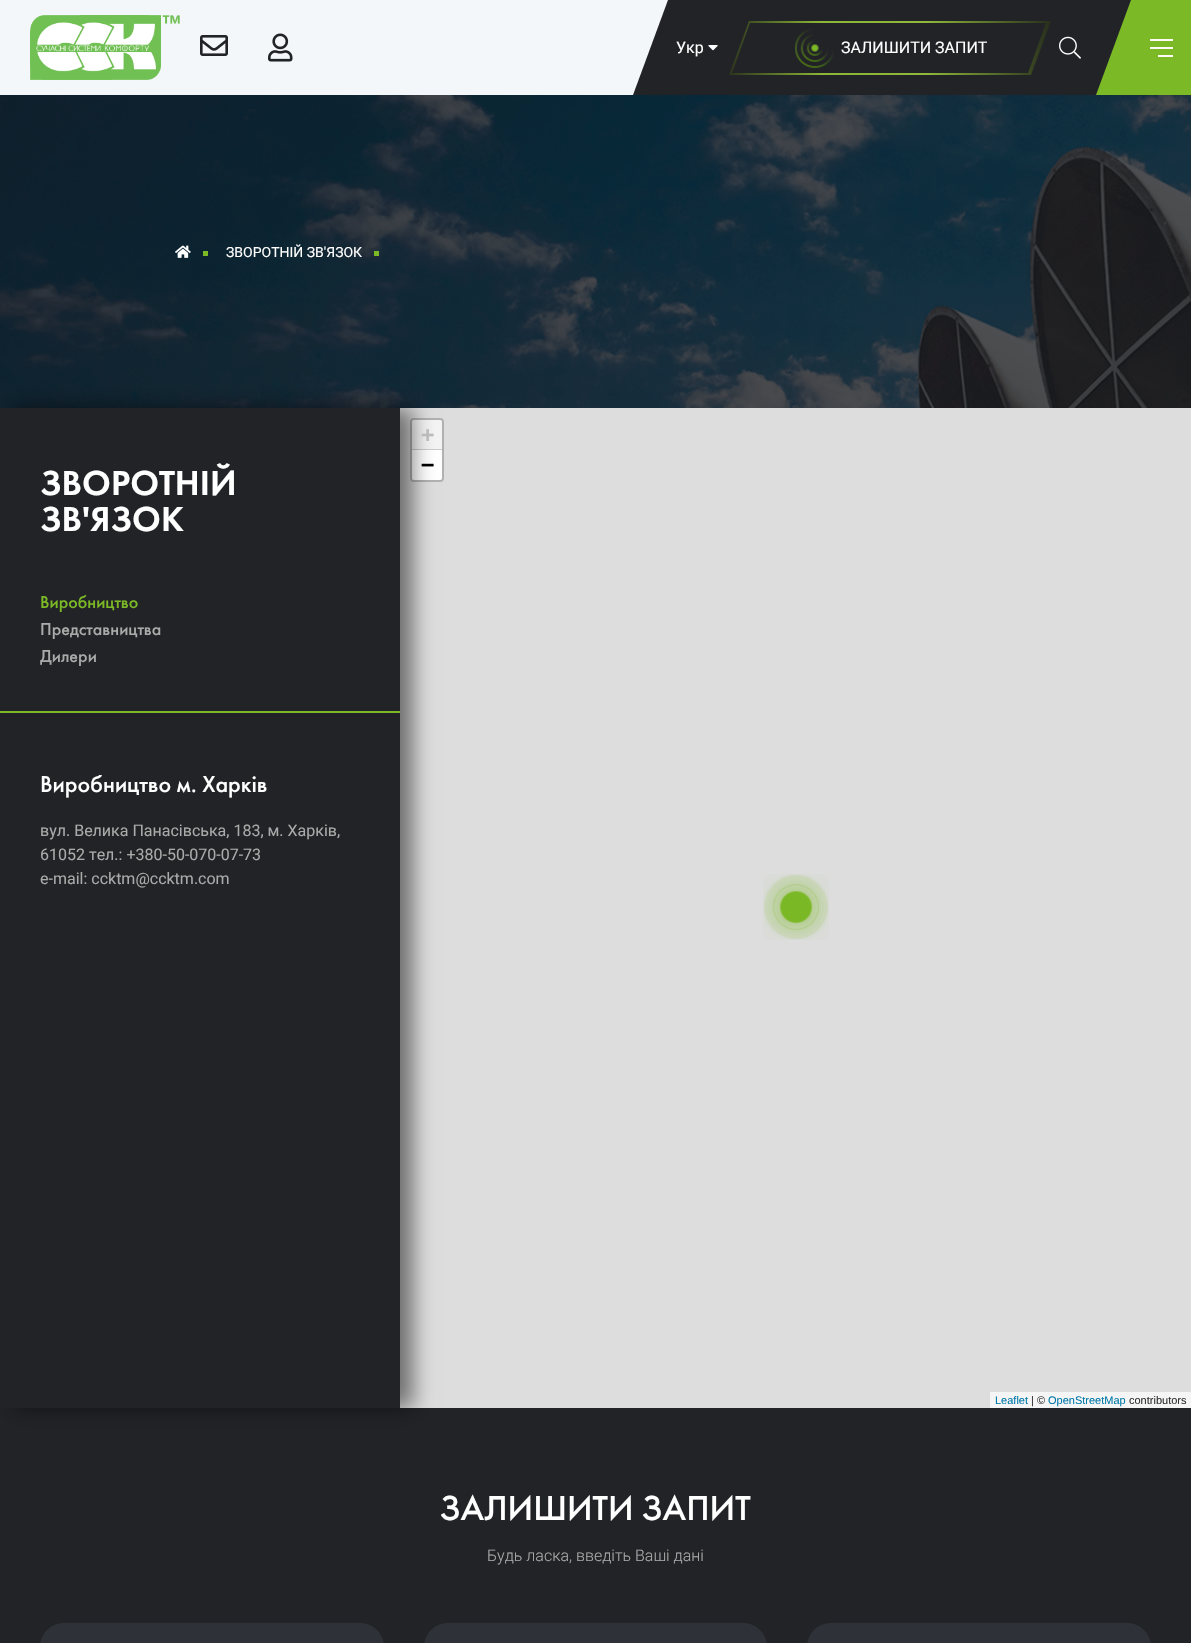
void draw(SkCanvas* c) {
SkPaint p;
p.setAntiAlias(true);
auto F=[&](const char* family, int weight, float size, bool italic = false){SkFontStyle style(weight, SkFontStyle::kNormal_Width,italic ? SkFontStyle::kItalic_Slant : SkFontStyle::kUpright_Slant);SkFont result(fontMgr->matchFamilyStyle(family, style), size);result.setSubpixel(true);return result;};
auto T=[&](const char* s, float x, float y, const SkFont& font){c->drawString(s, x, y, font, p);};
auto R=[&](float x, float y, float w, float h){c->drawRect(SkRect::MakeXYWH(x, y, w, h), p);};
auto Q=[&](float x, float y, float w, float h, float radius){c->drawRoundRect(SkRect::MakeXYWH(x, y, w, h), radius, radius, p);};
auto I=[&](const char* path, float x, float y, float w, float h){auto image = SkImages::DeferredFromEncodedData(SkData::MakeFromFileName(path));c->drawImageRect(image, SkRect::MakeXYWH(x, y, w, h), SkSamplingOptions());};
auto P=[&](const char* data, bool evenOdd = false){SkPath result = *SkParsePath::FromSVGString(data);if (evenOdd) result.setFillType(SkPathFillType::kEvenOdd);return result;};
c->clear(0xffffffff);
p.setColor(0xfff4f7fa);
R(0,0,668,95);
I("1.png",30,15,150,65);
I("2.png",200,35,28,21);
I("3.png",268,33,25,29);
p.setColor(0xff222327);
c->drawPath(P("M668 0h480l-34 95h-481z"),p);
auto f1 = F("Roboto",400,16);
p.setColor(0xffffffff);
T("Укр",676,53,f1);
I("4.png",708,45,10,6);
{
const SkColor colors[] = {0xff151617,0xff151617,0xff8fb83a,0xff8cb636,0xff151617,0xff151617};
const float stops[] = {0,.1,.42,.65,.9,1};
const SkPoint ends[] = {{1119,44}, {661,52}};
p.setShader(SkGradientShader::MakeLinear(ends, colors, stops, 6, SkTileMode::kClamp));
p.setAlpha(255);
}
c->drawPath(P("M749 21h302l-20 54h-302z"),p);
p.setShader(nullptr);
p.setColor(0xff222327);
c->drawPath(P("M750 23h296l-18 50h-296z"),p);
I("5.png",795,29,39,39);
p.setColor(0xffffffff);
T("ЗАЛИШИТИ ЗАПИТ",841,53,f1);
I("6.png",1059,36,22,23);
p.setColor(0xff7cb927);
R(1156,0,35,95);
c->drawPath(P("M1131 0h60l-35 95h-60z"),p);
p.setColor(0xfffcfbf6);
R(1150,39,23,2);
R(1150,47,23,2);
R(1158,55,15,2);
I("7.png",0,95,1191,313);
I("8.png",175,245,16,13);
p.setColor(0xff7cb927);
R(203,251,5,5);
auto f2 = F("Roboto",400,14);
p.setColor(0xffffffff);
T("ЗВОРОТНІЙ ЗВ'ЯЗОК",226,257,f2);
p.setColor(0xff7cb927);
R(374,251,5,5);
p.setColor(0xffdddddd);
R(400,408,791,1000);
p.setStroke(true);
p.setStrokeWidth(2);
p.setColor(0xffb1b1b1);
c->drawRoundRect(SkRect::MakeXYWH(411,419,32,62),3,3,p);
p.setStroke(false);
p.setColor(0xfff4f4f4);
c->drawPath(P("M414 420h26c1 0 2 1 2 2v28h-30v-28c0-1 1-2 2-2z"),p);
p.setColor(0xffcccccc);
R(412,449,30,1);
p.setColor(0xffffffff);
c->drawPath(P("M412 450h30v28c0 1-1 2-2 2h-26c-1 0-2-1-2-2z"),p);
p.setColor(0xff222327);
R(0,1408,1191,235);
p.setColor(0x80000000);
p.setMaskFilter(SkMaskFilter::MakeBlur(kNormal_SkBlurStyle, 10));
c->drawRect(SkRect::MakeXYWH(13,408,400,1000),p);
p.setMaskFilter(nullptr);
p.setColor(0xff222327);
R(0,408,400,1000);
auto f3 = F("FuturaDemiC",600,36);
p.setColor(0xffffffff);
T("ЗВОРОТНІЙ",40,495,f3);
T("ЗВ'ЯЗОК",40,531,f3);
p.setColor(0xff7cb927);
R(0,711,400,2);
auto f4 = F("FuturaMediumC",500,18);
T("Виробництво",40,608,f4);
p.setColor(0xffaaaaaa);
T("Представництва",40,635,f4);
T("Дилери",40,662,f4);
auto f5 = F("FuturaMediumC",500,24);
p.setColor(0xffffffff);
T("Виробництво м. Харків",40,792,f5);
p.setColor(0xffaaaaaa);
T("вул. Велика Панасівська, 183, м. Харків,",40,836,f1);
T("61052 тел.: +380-50-070-07-73",40,860,f1);
T("e-mail: ccktm@ccktm.com",40,884,f1);
auto f6 = F("DejaVu Sans Mono",700,22);
p.setColor(0xffbbbbbb);
T("+",421,442,f6);
p.setColor(0xff000000);
T("−",421,472,f6);
p.setColor(0xfff5f5f5);
R(990,1392,201,16);
auto f7 = F("Liberation Sans",400,11);
p.setColor(0xff0078a8);
T("Leaflet",995,1404,f7);
p.setColor(0xff333333);
T("| ©",1031,1404,f7);
p.setColor(0xff0078a8);
T("OpenStreetMap",1048,1404,f7);
p.setColor(0xff333333);
T("contributors",1129,1404,f7);
I("9.png",763,874,66,66);
auto f8 = F("FuturaMediumC",500,36);
p.setColor(0xffffffff);
T("ЗАЛИШИТИ ЗАПИТ",440,1520,f8);
auto f9 = F("Roboto",300,16);
p.setColor(0xffaaaaaa);
T("Будь ласка, введіть Ваші дані",487,1561,f9);
p.setColor(0xff2e3137);
Q(40,1623,344,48,27.5);
Q(424,1623,343,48,27.5);
Q(807,1623,344,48,27.5);
}
